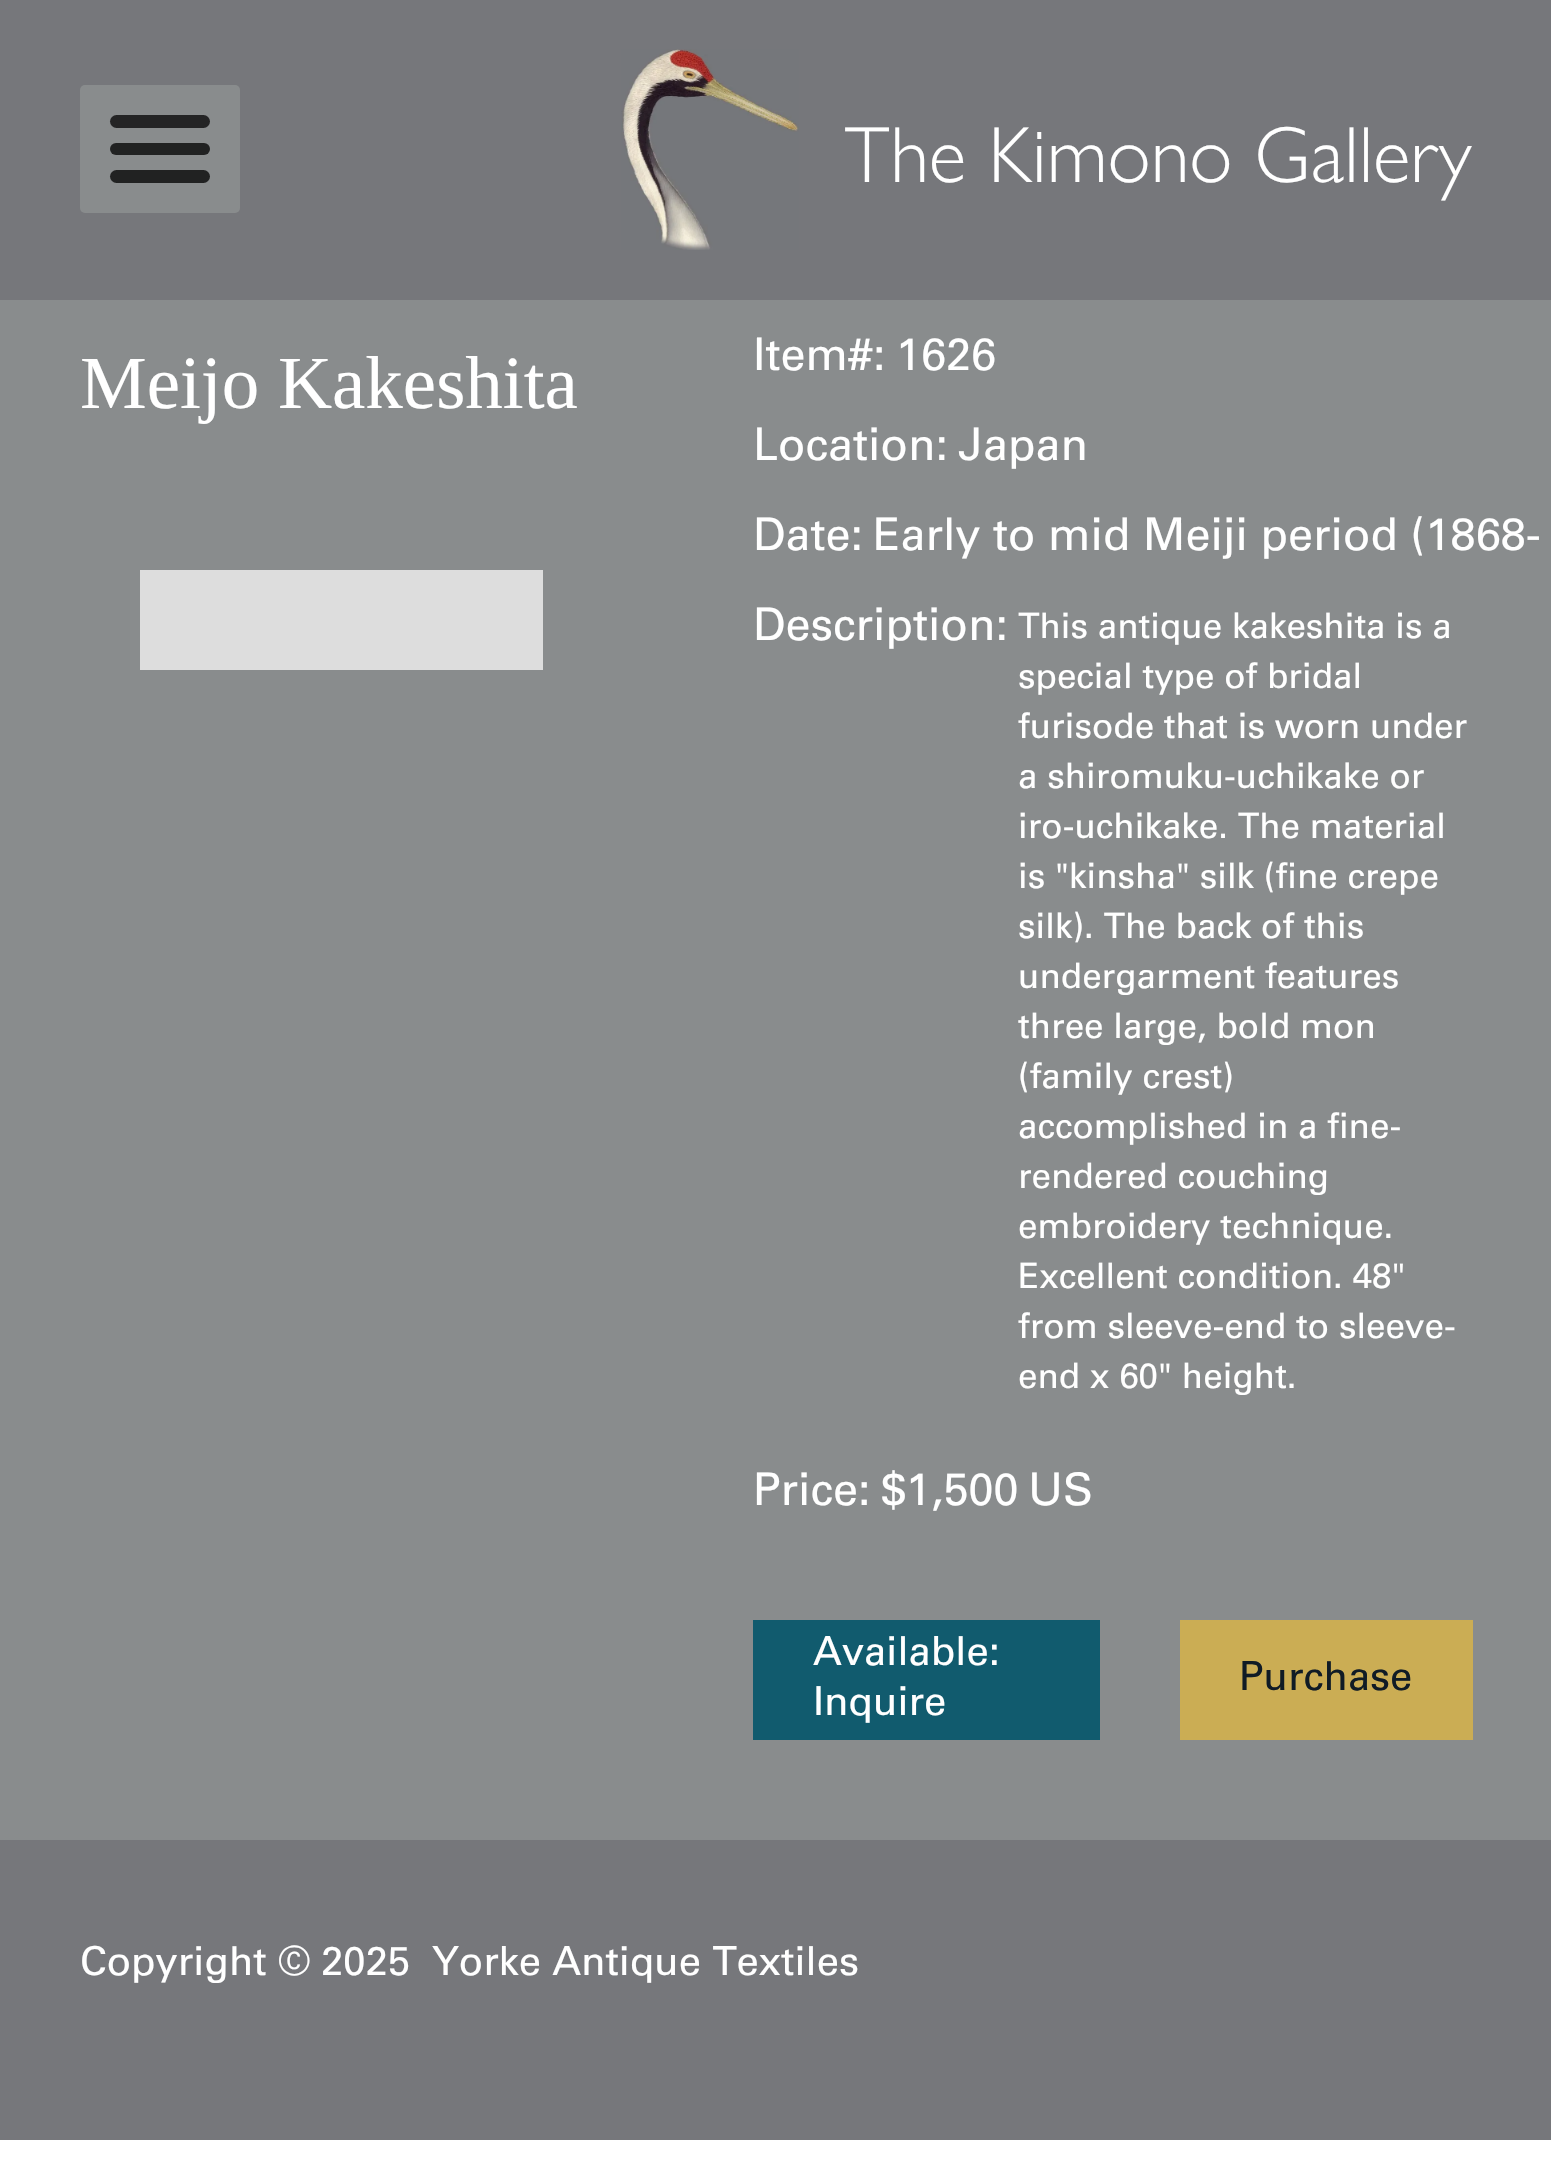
void draw(SkCanvas* c) {
SkPaint p;
p.setAntiAlias(true);
auto F=[&](const char* family, int weight, float size, bool italic = false){SkFontStyle style(weight, SkFontStyle::kNormal_Width,italic ? SkFontStyle::kItalic_Slant : SkFontStyle::kUpright_Slant);SkFont result(fontMgr->matchFamilyStyle(family, style), size);result.setSubpixel(true);return result;};
auto T=[&](const char* s, float x, float y, const SkFont& font){c->drawString(s, x, y, font, p);};
auto R=[&](float x, float y, float w, float h){c->drawRect(SkRect::MakeXYWH(x, y, w, h), p);};
auto Q=[&](float x, float y, float w, float h, float radius){c->drawRoundRect(SkRect::MakeXYWH(x, y, w, h), radius, radius, p);};
auto I=[&](const char* path, float x, float y, float w, float h){auto image = SkImages::DeferredFromEncodedData(SkData::MakeFromFileName(path));c->drawImageRect(image, SkRect::MakeXYWH(x, y, w, h), SkSamplingOptions());};
c->clear(0xffffffff);
p.setColor(0xff76777b);
R(0,0,1551,300);
p.setColor(0xff898c8d);
Q(80,85,160,128,5);
p.setColor(0xff242425);
Q(110,115,100,13,6.5);
p.setColor(0xff212222);
Q(110,143,100,12,6);
Q(110,170,100,13,6.5);
I("1.png",621,49,178,201);
auto f1 = F("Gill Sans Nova",300,80);
p.setColor(0xffffffff);
T("The Kimono Gallery",844,182,f1);
p.setColor(0xff898c8d);
R(0,300,1551,1540);
auto f2 = F("Liberation Serif",400,75);
p.setColor(0xffffffff);
T("Meijo Kakeshita",80,408,f2);
p.setColor(0xffdddddd);
R(140,570,403,100);
auto f3 = F("Univers",400,45);
p.setColor(0xffffffff);
T("Item#:",753,370,f3);
T("1626",896,370,f3);
T("Location:",753,460,f3);
T("Japan",958,460,f3);
T("Date:",753,550,f3);
T("Early to mid Meiji period (1868-",873,550,f3);
T("Description:",753,640,f3);
auto f4 = F("Univers",400,35);
T("This antique kakeshita is a",1018,638,f4);
T("special type of bridal",1018,688,f4);
T("furisode that is worn under",1018,738,f4);
T("a shiromuku-uchikake or",1018,788,f4);
T("iro-uchikake. The material",1018,838,f4);
T("is \"kinsha\" silk (fine crepe",1018,888,f4);
T("silk). The back of this",1018,938,f4);
T("undergarment features",1018,988,f4);
T("three large, bold mon",1018,1038,f4);
T("(family crest)",1018,1088,f4);
T("accomplished in a fine-",1018,1138,f4);
T("rendered couching",1018,1188,f4);
T("embroidery technique.",1018,1238,f4);
T("Excellent condition. 48\"",1018,1288,f4);
T("from sleeve-end to sleeve-",1018,1338,f4);
T("end x 60\" height.",1018,1388,f4);
T("Price:",753,1505,f3);
T("$1,500",881,1505,f3);
T("US",1028,1505,f3);
p.setColor(0xff115b6e);
R(753,1620,347,120);
auto f5 = F("Univers",400,40);
p.setColor(0xffffffff);
T("Available:",813,1665,f5);
T("Inquire",813,1715,f5);
p.setColor(0xffcbad54);
R(1180,1620,293,120);
p.setColor(0xff101b25);
T("Purchase",1239,1690,f5);
p.setColor(0xff76777b);
R(0,1840,1551,300);
p.setColor(0xffffffff);
T("Copyright © 2025  Yorke Antique Textiles",80,1975,f5);
}
